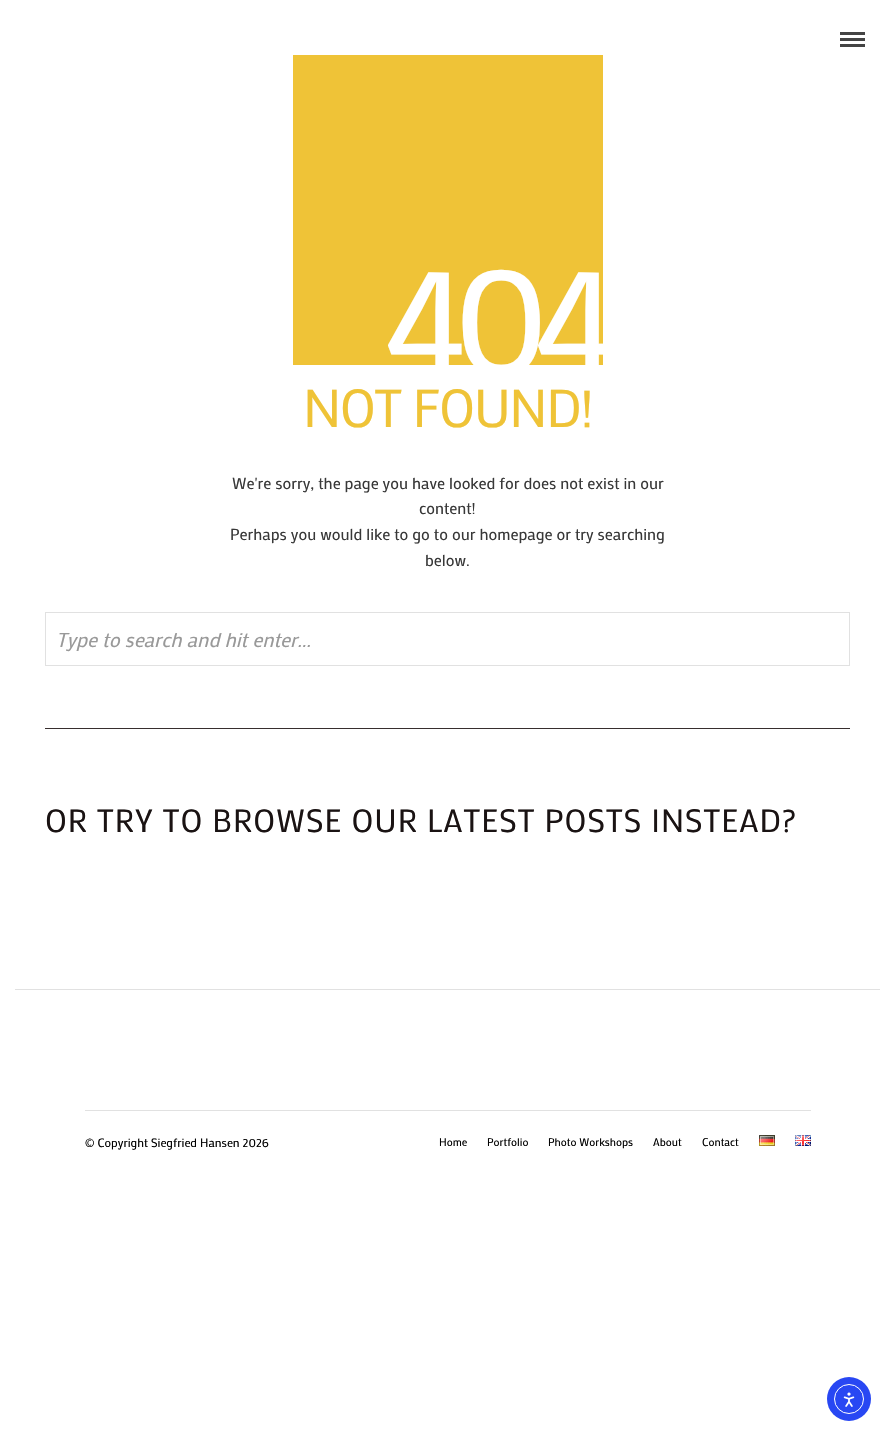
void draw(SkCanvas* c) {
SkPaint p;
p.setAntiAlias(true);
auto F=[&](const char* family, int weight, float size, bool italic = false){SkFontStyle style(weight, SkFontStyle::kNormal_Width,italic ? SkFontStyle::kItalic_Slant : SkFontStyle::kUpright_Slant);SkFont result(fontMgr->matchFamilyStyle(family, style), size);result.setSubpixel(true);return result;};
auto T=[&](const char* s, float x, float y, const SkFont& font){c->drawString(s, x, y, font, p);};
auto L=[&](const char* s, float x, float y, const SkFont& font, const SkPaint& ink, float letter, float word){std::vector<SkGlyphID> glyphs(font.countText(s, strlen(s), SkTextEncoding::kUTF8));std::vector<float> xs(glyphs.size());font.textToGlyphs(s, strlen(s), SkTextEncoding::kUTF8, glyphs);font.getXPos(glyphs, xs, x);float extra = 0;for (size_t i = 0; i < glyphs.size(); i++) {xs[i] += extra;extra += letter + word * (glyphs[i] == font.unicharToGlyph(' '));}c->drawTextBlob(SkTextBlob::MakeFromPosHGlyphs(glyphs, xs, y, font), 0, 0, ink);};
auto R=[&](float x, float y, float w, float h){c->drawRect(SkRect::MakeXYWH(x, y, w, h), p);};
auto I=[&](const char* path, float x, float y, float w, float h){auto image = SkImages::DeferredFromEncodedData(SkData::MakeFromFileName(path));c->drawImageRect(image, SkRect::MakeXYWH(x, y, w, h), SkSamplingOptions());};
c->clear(0xffffffff);
p.setColor(0xff444444);
R(840,32,25,3);
R(840,38,25,3);
R(840,44,25,3);
p.setColor(0xffefc337);
R(293,55,310,310);
auto f1 = F("Mako",400,156);
p.setColor(0xffffffff);
L("404",385,374,f1,p,-15,0);
auto f2 = F("Mako",400,53);
p.setColor(0xffefc337);
L("NOT FOUND!",303,427,f2,p,-1.5,0);
auto f3 = F("Mako",400,16);
p.setColor(0xff383838);
T("We're sorry, the page you have looked for does not exist in our",232,489,f3);
T("content!",419,514,f3);
T("Perhaps you would like to go to our homepage or try searching",230,540,f3);
T("below.",425,566,f3);
p.setStroke(true);
p.setStrokeWidth(1);
p.setColor(0xffe1e1e1);
c->drawRect(SkRect::MakeXYWH(45.5,612.5,804,53),p);
auto f4 = F("Mako",400,20,true);
p.setStroke(false);
p.setColor(0xff999999);
T("Type to search and hit enter...",56,647,f4);
p.setColor(0xff372e2e);
R(45,728,805,1);
auto f5 = F("Mako",400,32);
p.setColor(0xff1a1313);
L("OR TRY TO BROWSE OUR LATEST POSTS INSTEAD?",45,832,f5,p,1,0);
p.setColor(0xffe1e1e1);
R(15,989,865,1);
R(85,1110,726,1);
auto f6 = F("Mako",400,12);
p.setColor(0xff000000);
T("© Copyright Siegfried Hansen 2026",85,1147,f6);
auto f7 = F("Mako",400,11);
T("Home",439,1146,f7);
T("Portfolio",487,1146,f7);
T("Photo Workshops",548,1146,f7);
T("About",653,1146,f7);
T("Contact",702,1146,f7);
I("1.png",759,1135,16,11);
I("2.png",795,1135,16,11);
p.setColor(0xff2847f3);
c->drawCircle(849,1399,22,p);
p.setStroke(true);
p.setColor(0xffffffff);
c->drawCircle(849,1399,14.5,p);
I("3.png",843,1392,12,15);
}
